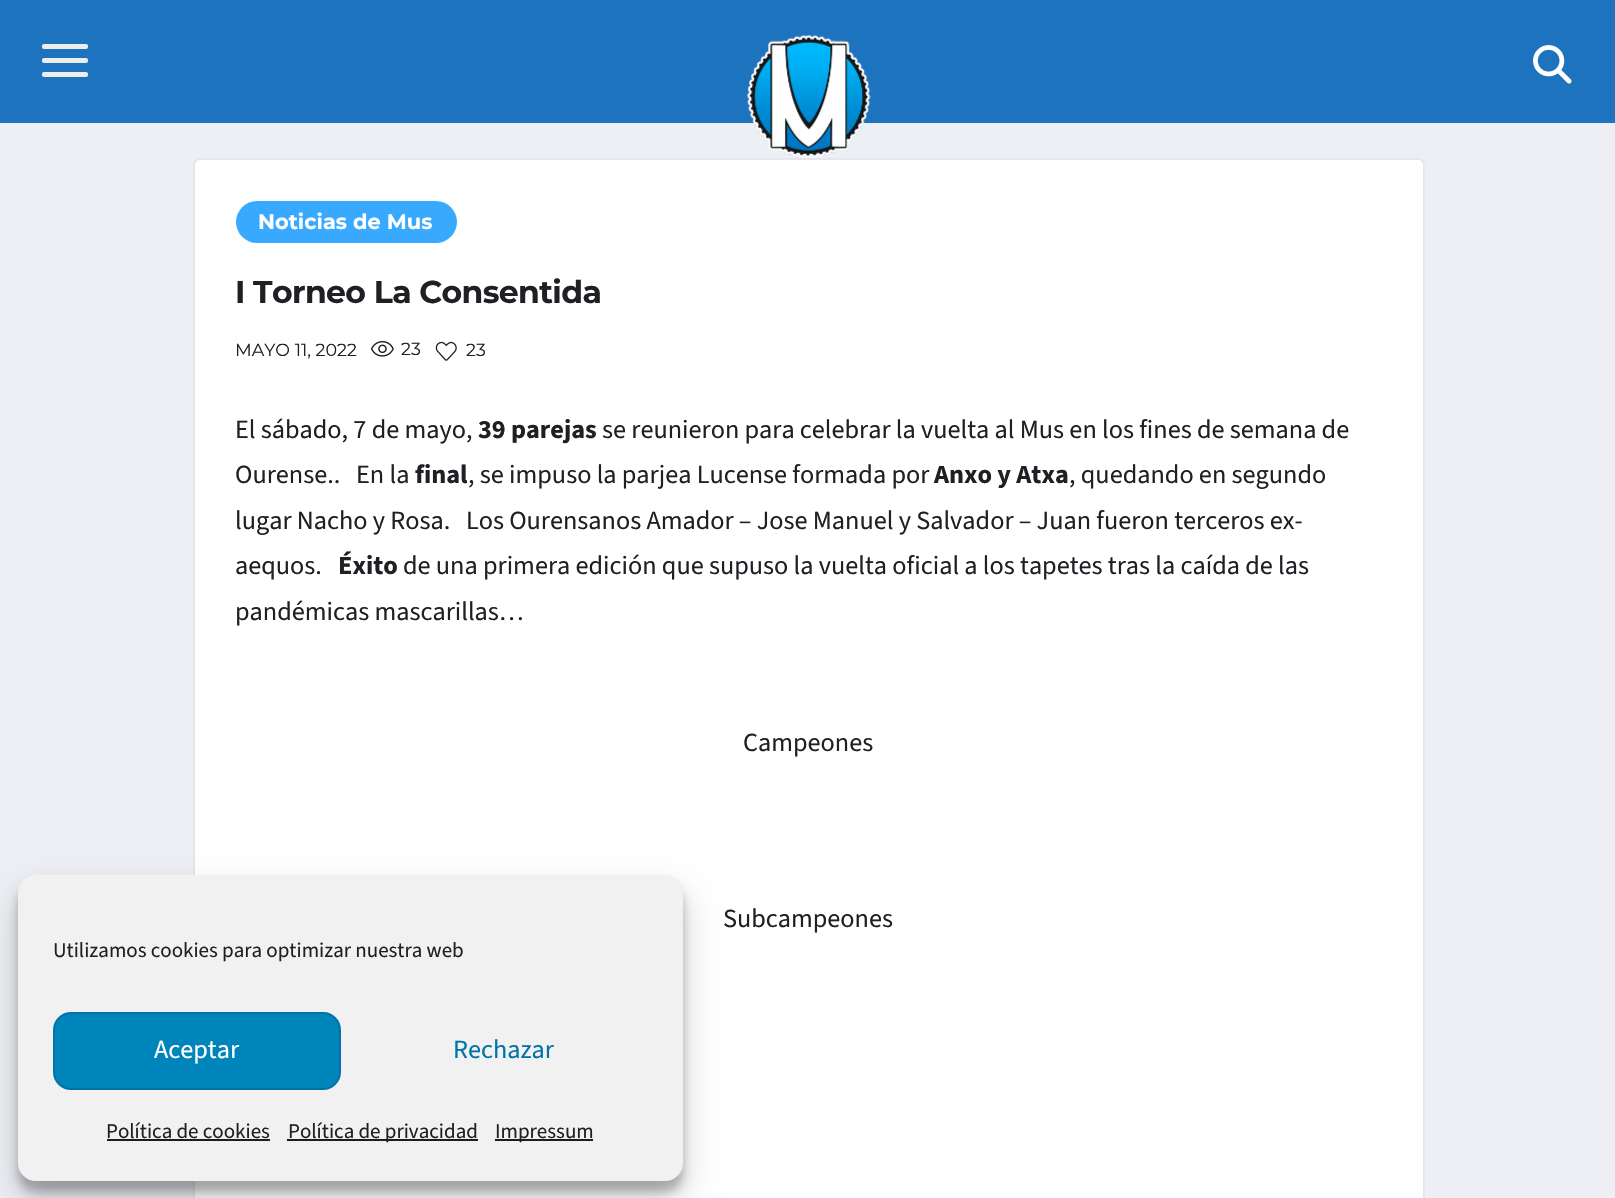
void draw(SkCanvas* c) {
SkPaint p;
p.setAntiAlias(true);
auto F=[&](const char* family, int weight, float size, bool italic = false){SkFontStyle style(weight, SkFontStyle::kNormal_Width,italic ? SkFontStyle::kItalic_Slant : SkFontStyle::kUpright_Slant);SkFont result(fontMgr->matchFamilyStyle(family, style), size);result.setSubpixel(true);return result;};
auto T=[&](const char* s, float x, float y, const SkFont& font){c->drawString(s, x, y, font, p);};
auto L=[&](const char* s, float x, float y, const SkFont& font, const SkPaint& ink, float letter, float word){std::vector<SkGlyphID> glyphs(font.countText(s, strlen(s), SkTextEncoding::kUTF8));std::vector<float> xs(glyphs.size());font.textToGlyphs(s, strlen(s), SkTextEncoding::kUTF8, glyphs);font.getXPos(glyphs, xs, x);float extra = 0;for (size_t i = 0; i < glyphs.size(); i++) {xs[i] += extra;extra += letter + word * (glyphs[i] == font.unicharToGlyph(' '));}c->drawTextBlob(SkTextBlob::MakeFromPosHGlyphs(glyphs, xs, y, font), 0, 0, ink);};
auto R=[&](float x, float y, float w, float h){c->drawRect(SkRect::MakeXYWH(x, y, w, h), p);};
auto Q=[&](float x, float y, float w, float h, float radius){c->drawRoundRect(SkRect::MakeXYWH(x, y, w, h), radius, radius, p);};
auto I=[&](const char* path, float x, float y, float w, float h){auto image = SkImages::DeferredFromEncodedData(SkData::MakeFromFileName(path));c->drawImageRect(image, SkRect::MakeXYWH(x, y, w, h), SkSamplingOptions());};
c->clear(0xffedeff4);
p.setColor(0xff1e73be);
R(0,0,1615,123);
I("1.png",747,34,124,124);
p.setColor(0xffededed);
Q(42,44,46,5,2);
Q(42,58,46,5,2);
Q(42,72,46,5,2);
I("2.png",1533,45,39,39);
p.setColor(0xffffffff);
c->drawRoundRect(SkRect::MakeXYWH(194,159,1230,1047),6,6,p);
p.setStroke(true);
p.setStrokeWidth(2);
p.setColor(0xffe4e7ed);
c->drawRoundRect(SkRect::MakeXYWH(194,159,1230,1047),6,6,p);
p.setStroke(false);
p.setColor(0xff38a9ff);
Q(236,201,221,42,21);
auto f1 = F("Montserrat",700,21);
p.setColor(0xffffffff);
T("Noticias de Mus",258,229,f1);
auto f2 = F("Montserrat",700,31.5);
p.setColor(0xff1e2024);
L("I Torneo La Consentida",235,303,f2,p,-.6,0);
auto f3 = F("Montserrat",100,17.5);
T("MAYO 11, 2022",235,356,f3);
I("3.png",371,340,23,17);
T("23",401,355,f3);
I("4.png",435,341,22,20);
T("23",466,356,f3);
auto f4 = F("Source Sans 3",400,26.25);
T("El sábado, 7 de mayo,",235,438,f4);
auto f5 = F("Source Sans 3",700,26.25);
T("39 parejas",478,438,f5);
T("se reunieron para celebrar la vuelta al Mus en los fines de semana de",602,438,f4);
T("Ourense..   En la",235,483,f4);
T("final",415,483,f5);
T(", se impuso la parjea Lucense formada por",468,483,f4);
T("Anxo y Atxa",934,483,f5);
T(", quedando en segundo",1069,483,f4);
T("lugar Nacho y Rosa.   Los Ourensanos Amador – Jose Manuel y Salvador – Juan fueron terceros ex-",235,529,f4);
T("aequos.",235,574,f4);
T("Éxito",338,574,f5);
T("de una primera edición que supuso la vuelta oficial a los tapetes tras la caída de las",403,574,f4);
T("pandémicas mascarillas…",235,620,f4);
T("Campeones",743,751,f4);
T("Subcampeones",723,927,f4);
p.setColor(0x3b000000);
p.setMaskFilter(SkMaskFilter::MakeBlur(kNormal_SkBlurStyle, 5));
c->drawRoundRect(SkRect::MakeXYWH(18,886,665,306),18,18,p);
p.setMaskFilter(nullptr);
p.setColor(0x30000000);
p.setMaskFilter(SkMaskFilter::MakeBlur(kNormal_SkBlurStyle, 17.5));
c->drawRoundRect(SkRect::MakeXYWH(18,893,665,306),18,18,p);
p.setMaskFilter(nullptr);
p.setColor(0xfff1f1f1);
Q(18,875,665,306,18);
auto f6 = F("Source Sans 3",400,21);
p.setColor(0xff1e2024);
T("Utilizamos cookies para optimizar nuestra web",53,957,f6);
p.setColor(0xff0085ba);
c->drawRoundRect(SkRect::MakeXYWH(54,1013,286,76),17,17,p);
p.setStroke(true);
p.setColor(0xff0073aa);
c->drawRoundRect(SkRect::MakeXYWH(54,1013,286,76),17,17,p);
p.setStroke(false);
p.setColor(0xffffffff);
T("Aceptar",154,1058,f4);
p.setColor(0xff0073aa);
T("Rechazar",453,1058,f4);
p.setColor(0xff1e2024);
T("Política de cookies",106,1138,f6);
p.setColor(0xff191e23);
R(107,1139,163,2);
R(287,1139,191,2);
p.setColor(0xff1e2024);
T("Política de privacidad",288,1138,f6);
p.setColor(0xff191e23);
R(495,1139,98,2);
p.setColor(0xff1e2024);
T("Impressum",495,1138,f6);
}
